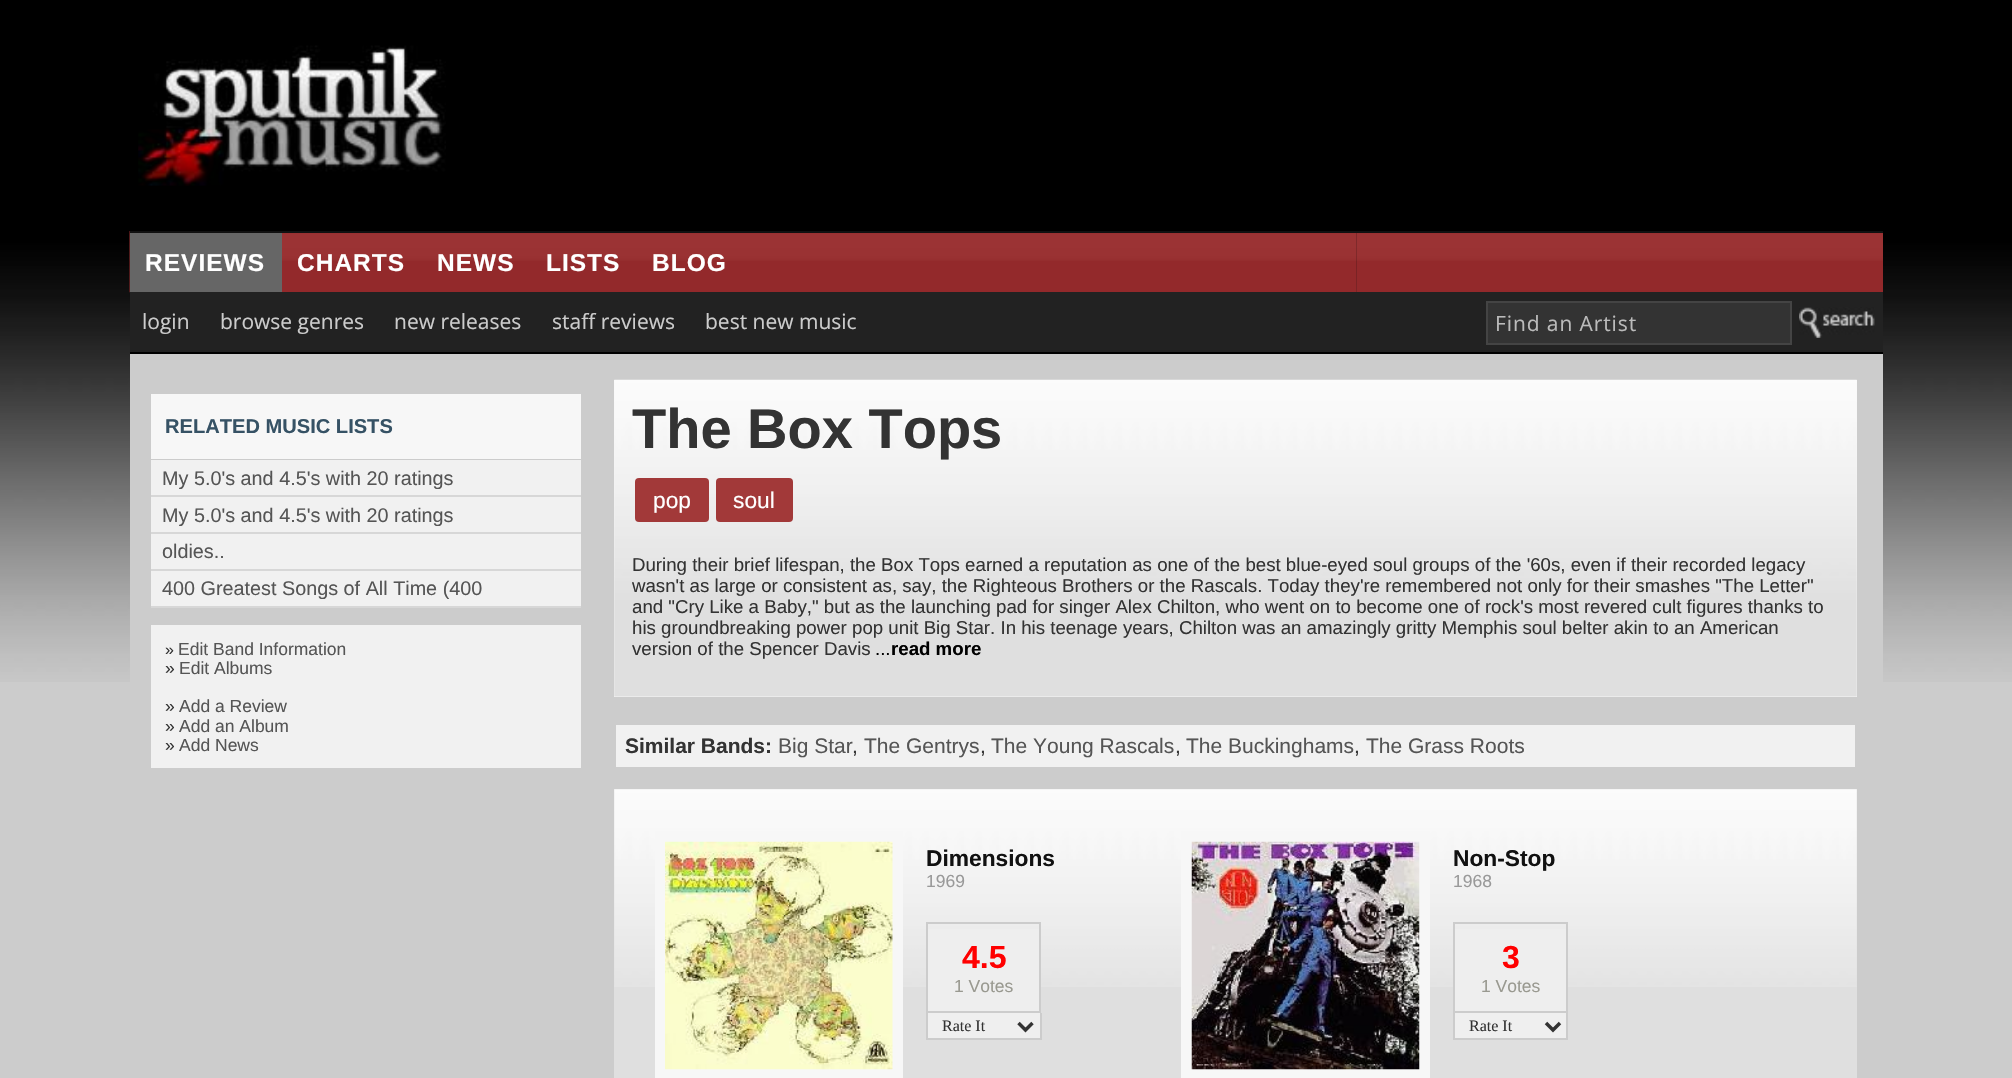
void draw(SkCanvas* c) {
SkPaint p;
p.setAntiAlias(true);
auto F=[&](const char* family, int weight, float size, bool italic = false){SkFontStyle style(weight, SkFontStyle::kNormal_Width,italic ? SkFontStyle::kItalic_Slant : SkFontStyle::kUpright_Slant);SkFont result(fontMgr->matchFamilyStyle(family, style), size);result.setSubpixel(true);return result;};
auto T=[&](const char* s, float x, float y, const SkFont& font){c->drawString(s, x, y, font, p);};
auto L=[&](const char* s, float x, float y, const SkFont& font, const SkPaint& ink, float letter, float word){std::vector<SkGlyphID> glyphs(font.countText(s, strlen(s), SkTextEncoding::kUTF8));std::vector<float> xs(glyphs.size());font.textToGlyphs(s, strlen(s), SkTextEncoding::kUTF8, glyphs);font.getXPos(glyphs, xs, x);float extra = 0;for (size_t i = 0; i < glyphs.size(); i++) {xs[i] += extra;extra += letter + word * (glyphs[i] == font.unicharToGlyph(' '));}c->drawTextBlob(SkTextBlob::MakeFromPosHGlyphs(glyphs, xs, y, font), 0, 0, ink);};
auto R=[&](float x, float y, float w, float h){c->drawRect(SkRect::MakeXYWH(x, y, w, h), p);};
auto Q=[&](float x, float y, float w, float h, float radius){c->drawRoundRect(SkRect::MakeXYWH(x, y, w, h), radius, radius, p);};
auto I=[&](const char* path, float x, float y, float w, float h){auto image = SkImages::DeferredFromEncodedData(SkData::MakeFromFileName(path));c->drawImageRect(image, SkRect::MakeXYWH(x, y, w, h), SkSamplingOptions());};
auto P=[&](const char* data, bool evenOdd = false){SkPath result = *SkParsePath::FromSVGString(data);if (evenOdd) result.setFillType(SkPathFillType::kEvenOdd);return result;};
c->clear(0xffcccccc);
I("1.png",0,0,2012,682);
I("2.png",138,45,308,141);
I("3.png",129,231,1228,62);
p.setColor(0xff111111);
R(130,231,1753,2);
p.setColor(0xff666666);
R(130,233,152,59);
auto f1 = F("Liberation Sans",700,24.5);
p.setColor(0xffffffff);
L("REVIEWS",145,271,f1,p,1,0);
L("CHARTS",297,271,f1,p,1,0);
L("NEWS",437,271,f1,p,1,0);
L("LISTS",546,271,f1,p,1,0);
L("BLOG",652,271,f1,p,1,0);
I("4.png",1356,233,527,59);
p.setColor(0xff222222);
R(130,292,1753,60);
auto f2 = F("Open Sans",400,21);
p.setColor(0xffcccccc);
T("login",142,329,f2);
T("browse genres",220,329,f2);
T("new releases",394,329,f2);
T("staff reviews",552,329,f2);
T("best new music",705,329,f2);
p.setColor(0xff333333);
c->drawRect(SkRect::MakeXYWH(1487,302,304,42),p);
p.setStroke(true);
p.setStrokeWidth(2);
p.setColor(0xff444444);
c->drawRect(SkRect::MakeXYWH(1487,302,304,42),p);
p.setStroke(false);
p.setColor(0xffbbbbbb);
L("Find an Artist",1495,331,f2,p,.9,0);
I("5.png",1799,307,76,31);
p.setColor(0xff000000);
R(130,352,1753,2);
p.setColor(0xffcccccc);
R(130,354,1753,328);
p.setColor(0xfff7f7f7);
R(151,394,430,65);
auto f3 = F("Liberation Sans",700,20.1);
p.setColor(0xff365265);
T("RELATED MUSIC LISTS",165,433,f3);
p.setColor(0xfff1f1f1);
R(151,460,430,35);
p.setColor(0xffd7d7d7);
R(151,495,430,2);
auto f4 = F("Liberation Sans",400,19.8);
p.setColor(0xff555555);
T("My 5.0's and 4.5's with 20 ratings",162,485,f4);
p.setColor(0xfff1f1f1);
R(151,497,430,35);
p.setColor(0xffd7d7d7);
R(151,532,430,2);
p.setColor(0xff555555);
T("My 5.0's and 4.5's with 20 ratings",162,522,f4);
p.setColor(0xfff1f1f1);
R(151,534,430,35);
p.setColor(0xffd7d7d7);
R(151,569,430,2);
p.setColor(0xff555555);
T("oldies..",162,558,f4);
p.setColor(0xfff1f1f1);
R(151,571,430,35);
p.setColor(0xffd7d7d7);
R(151,606,430,2);
p.setColor(0xff555555);
T("400 Greatest Songs of All Time (400",162,595,f4);
p.setColor(0xfff1f1f1);
R(151,625,430,143);
auto f5 = F("Liberation Sans",400,16);
p.setColor(0xff333333);
T("»",165,655,f5);
auto f6 = F("Liberation Sans",400,17.5);
p.setColor(0xff555555);
T("Edit Band Information",178,655,f6);
p.setColor(0xff333333);
T("»",165,674,f6);
p.setColor(0xff555555);
T("Edit Albums",179,674,f6);
p.setColor(0xff333333);
T("»",165,712,f6);
p.setColor(0xff555555);
T("Add a Review",179,712,f6);
p.setColor(0xff333333);
T("»",165,732,f6);
p.setColor(0xff555555);
T("Add an Album",179,732,f6);
p.setColor(0xff333333);
T("»",165,751,f6);
p.setColor(0xff555555);
T("Add News",179,751,f6);
p.setColor(0xfff7f7f7);
R(614,380,1243,317);
I("6.png",614,379,1243,318);
auto f7 = F("Liberation Sans",700,56);
p.setColor(0xff333333);
T("The Box Tops",632,448,f7);
p.setColor(0xffa23939);
Q(635,478,74,44,4);
auto f8 = F("Liberation Sans",400,22.75);
p.setColor(0xffffffff);
T("pop",653,508,f8);
p.setColor(0xffa23939);
Q(716,478,77,44,4);
p.setColor(0xffffffff);
T("soul",733,508,f8);
auto f9 = F("Liberation Sans",400,18.67);
p.setColor(0xff333333);
T("During their brief lifespan, the Box Tops earned a reputation as one of the best blue-eyed soul groups of the '60s, even if their recorded legacy",632,571,f9);
T("wasn't as large or consistent as, say, the Righteous Brothers or the Rascals. Today they're remembered not only for their smashes \"The Letter\"",632,592,f9);
T("and \"Cry Like a Baby,\" but as the launching pad for singer Alex Chilton, who went on to become one of rock's most revered cult figures thanks to",632,613,f9);
T("his groundbreaking power pop unit Big Star. In his teenage years, Chilton was an amazingly gritty Memphis soul belter akin to an American",632,634,f9);
T("version of the Spencer Davis",632,655,f9);
p.setColor(0xff000000);
T("...",875,655,f9);
auto f10 = F("Liberation Sans",700,18.67);
T("read more",891,655,f10);
p.setColor(0xfff1f1f1);
R(616,725,1239,42);
auto f11 = F("Liberation Sans",700,21);
p.setColor(0xff333333);
T("Similar Bands:",625,753,f11);
auto f12 = F("Liberation Sans",400,21);
p.setColor(0xff555555);
T("Big Star",778,753,f12);
p.setColor(0xff333333);
T(",",852,753,f12);
p.setColor(0xff555555);
T("The Gentrys",864,753,f12);
p.setColor(0xff333333);
T(",",980,753,f12);
p.setColor(0xff555555);
T("The Young Rascals",991,753,f12);
p.setColor(0xff333333);
T(",",1175,753,f12);
p.setColor(0xff555555);
T("The Buckinghams",1186,753,f12);
p.setColor(0xff333333);
T(",",1354,753,f12);
p.setColor(0xff555555);
T("The Grass Roots",1366,753,f12);
p.setColor(0xffdfdfdf);
R(614,789,1243,289);
I("7.png",614,789,1243,198);
p.setStroke(true);
p.setStrokeWidth(11);
p.setColor(0xfff7f7f7);
c->drawRect(SkRect::MakeXYWH(660.5,836.5,237,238),p);
I("8.png",665,841,228,229);
auto f13 = F("Liberation Sans",700,22.75);
p.setStroke(false);
p.setColor(0xff111111);
T("Dimensions",926,866,f13);
p.setColor(0xff999999);
T("1969",926,887,f6);
p.setColor(0xffeeeeee);
R(928,929,111,82);
p.setStroke(true);
p.setStrokeWidth(2);
p.setColor(0xffcccccc);
c->drawRect(SkRect::MakeXYWH(927,923,113,89),p);
auto f14 = F("Liberation Sans",700,32);
p.setStroke(false);
p.setColor(0xffff0000);
T("4.5",962,968,f14);
p.setColor(0xff999990);
T("1 Votes",954,992,f6);
p.setColor(0xffefefef);
R(928,1013,112,25);
p.setColor(0xffcccccc);
R(1040,1013,2,27);
R(926,1038,115,2);
R(926,1013,2,27);
p.setStroke(true);
p.setStrokeWidth(3.5);
p.setColor(0xff333333);
c->drawPath(P("M1018.5 1023l7 7l7-7"),p);
auto f15 = F("Liberation Serif",400,16);
p.setStroke(false);
T("Rate It",942,1031,f15);
p.setStroke(true);
p.setStrokeWidth(11);
p.setColor(0xfff7f7f7);
c->drawRect(SkRect::MakeXYWH(1186.5,836.5,238,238),p);
I("9.png",1191,841,229,229);
p.setStroke(false);
p.setColor(0xff111111);
T("Non-Stop",1453,866,f13);
p.setColor(0xff999999);
T("1968",1453,887,f6);
p.setColor(0xffeeeeee);
R(1455,929,111,82);
p.setStroke(true);
p.setStrokeWidth(2);
p.setColor(0xffcccccc);
c->drawRect(SkRect::MakeXYWH(1454,923,113,89),p);
p.setStroke(false);
p.setColor(0xffff0000);
T("3",1502,968,f14);
p.setColor(0xff999990);
T("1 Votes",1481,992,f6);
p.setColor(0xffefefef);
R(1455,1013,111,25);
p.setColor(0xffcccccc);
R(1566,1013,2,27);
R(1453,1038,115,2);
R(1453,1013,2,27);
p.setStroke(true);
p.setStrokeWidth(3.5);
p.setColor(0xff333333);
c->drawPath(P("M1546 1023l7 7l7-7"),p);
p.setStroke(false);
T("Rate It",1469,1031,f15);
}
